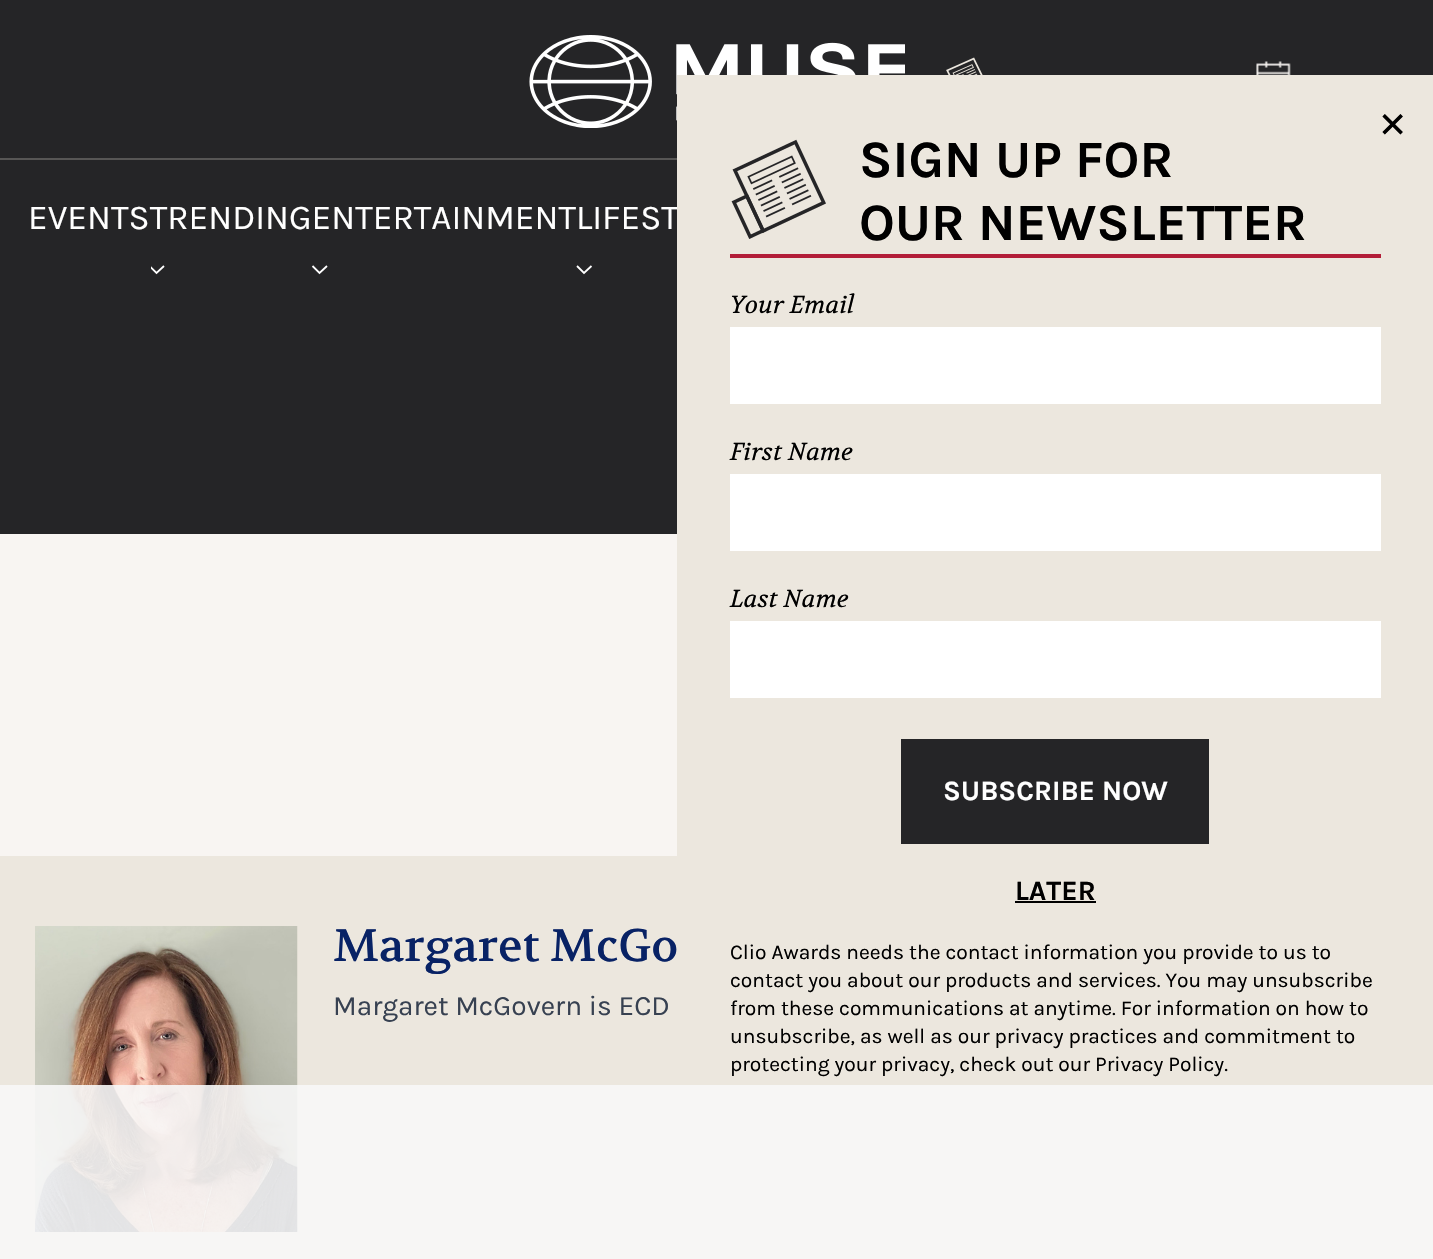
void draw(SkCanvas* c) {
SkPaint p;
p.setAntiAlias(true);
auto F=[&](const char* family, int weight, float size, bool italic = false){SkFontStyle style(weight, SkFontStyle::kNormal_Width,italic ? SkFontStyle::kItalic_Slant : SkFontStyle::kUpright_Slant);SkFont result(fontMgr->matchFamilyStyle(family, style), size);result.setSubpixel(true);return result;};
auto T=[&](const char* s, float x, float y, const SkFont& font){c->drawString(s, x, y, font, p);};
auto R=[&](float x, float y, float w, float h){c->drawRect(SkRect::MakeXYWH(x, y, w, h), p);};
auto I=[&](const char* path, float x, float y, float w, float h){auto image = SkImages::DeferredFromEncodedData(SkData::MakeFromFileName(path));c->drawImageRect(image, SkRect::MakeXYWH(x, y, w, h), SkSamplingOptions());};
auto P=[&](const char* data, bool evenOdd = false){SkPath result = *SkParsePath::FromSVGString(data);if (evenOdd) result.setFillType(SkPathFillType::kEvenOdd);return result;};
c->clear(0xfff8f5f2);
p.setColor(0xff252527);
R(0,0,1433,158);
I("1.png",529,35,376,93);
I("2.png",946,57,37,18);
I("3.png",1256,61,35,14);
R(0,160,677,374);
p.setColor(0xff575655);
R(0,158,677,2);
auto f1 = F("Karla",400,35);
p.setColor(0xffffffff);
T("EVENTSTRENDINGENTERTAINMENTLIFEST",28,229,f1);
c->save();
c->clipRect(SkRect::MakeXYWH(151,264,17,11));
p.setStroke(true);
p.setStrokeWidth(1.8);
c->drawPath(P("M164 266l-7.5 7l-7-7"),p);
c->restore();
c->drawPath(P("M327 266l-7.5 7l-7-7"),p);
c->drawPath(P("M591.5 266l-7.5 7l-7-7"),p);
p.setStroke(false);
p.setColor(0xffece7de);
R(677,75,756,781);
auto f2 = F("DejaVu Sans",400,35);
p.setColor(0xff000000);
T("✕",1378,137,f2);
p.setColor(0xffb31d38);
R(730,254,651,4);
I("4.png",731,139,95,100);
auto f3 = F("Karla",700,52.5);
p.setColor(0xff000000);
T("SIGN UP FOR",859,177,f3);
T("OUR NEWSLETTER",859,240,f3);
auto f4 = F("Volkhov",400,24.5,true);
T("Your Email",730,313,f4);
p.setColor(0xffffffff);
R(730,327,651,77);
p.setColor(0xff000000);
T("First Name",730,460,f4);
p.setColor(0xffffffff);
R(730,474,651,77);
p.setColor(0xff000000);
T("Last Name",730,607,f4);
p.setColor(0xffffffff);
R(730,621,651,77);
p.setColor(0xff252527);
R(901,739,308,105);
auto f5 = F("Karla",700,28);
p.setColor(0xffffffff);
T("SUBSCRIBE NOW",943,800,f5);
p.setColor(0xffece7de);
R(0,856,1433,403);
p.setColor(0xff000000);
T("LATER",1015,900,f5);
R(1015,901,81,2);
auto f6 = F("Karla",400,21);
T("Clio Awards needs the contact information you provide to us to",730,959,f6);
T("contact you about our products and services. You may unsubscribe",730,987,f6);
T("from these communications at anytime. For information on how to",730,1015,f6);
T("unsubscribe, as well as our privacy practices and commitment to",730,1043,f6);
T("protecting your privacy, check out our Privacy Policy.",730,1071,f6);
I("5.png",35,926,263,306);
auto f7 = F("Volkhov",400,45.5);
p.setColor(0xff082265);
T("Margaret McGo",333,961,f7);
auto f8 = F("Karla",400,28);
p.setColor(0xff374151);
T("Margaret McGovern is ECD",333,1015,f8);
p.setColor(0xe6f7f7f7);
R(0,1085,1433,174);
}
